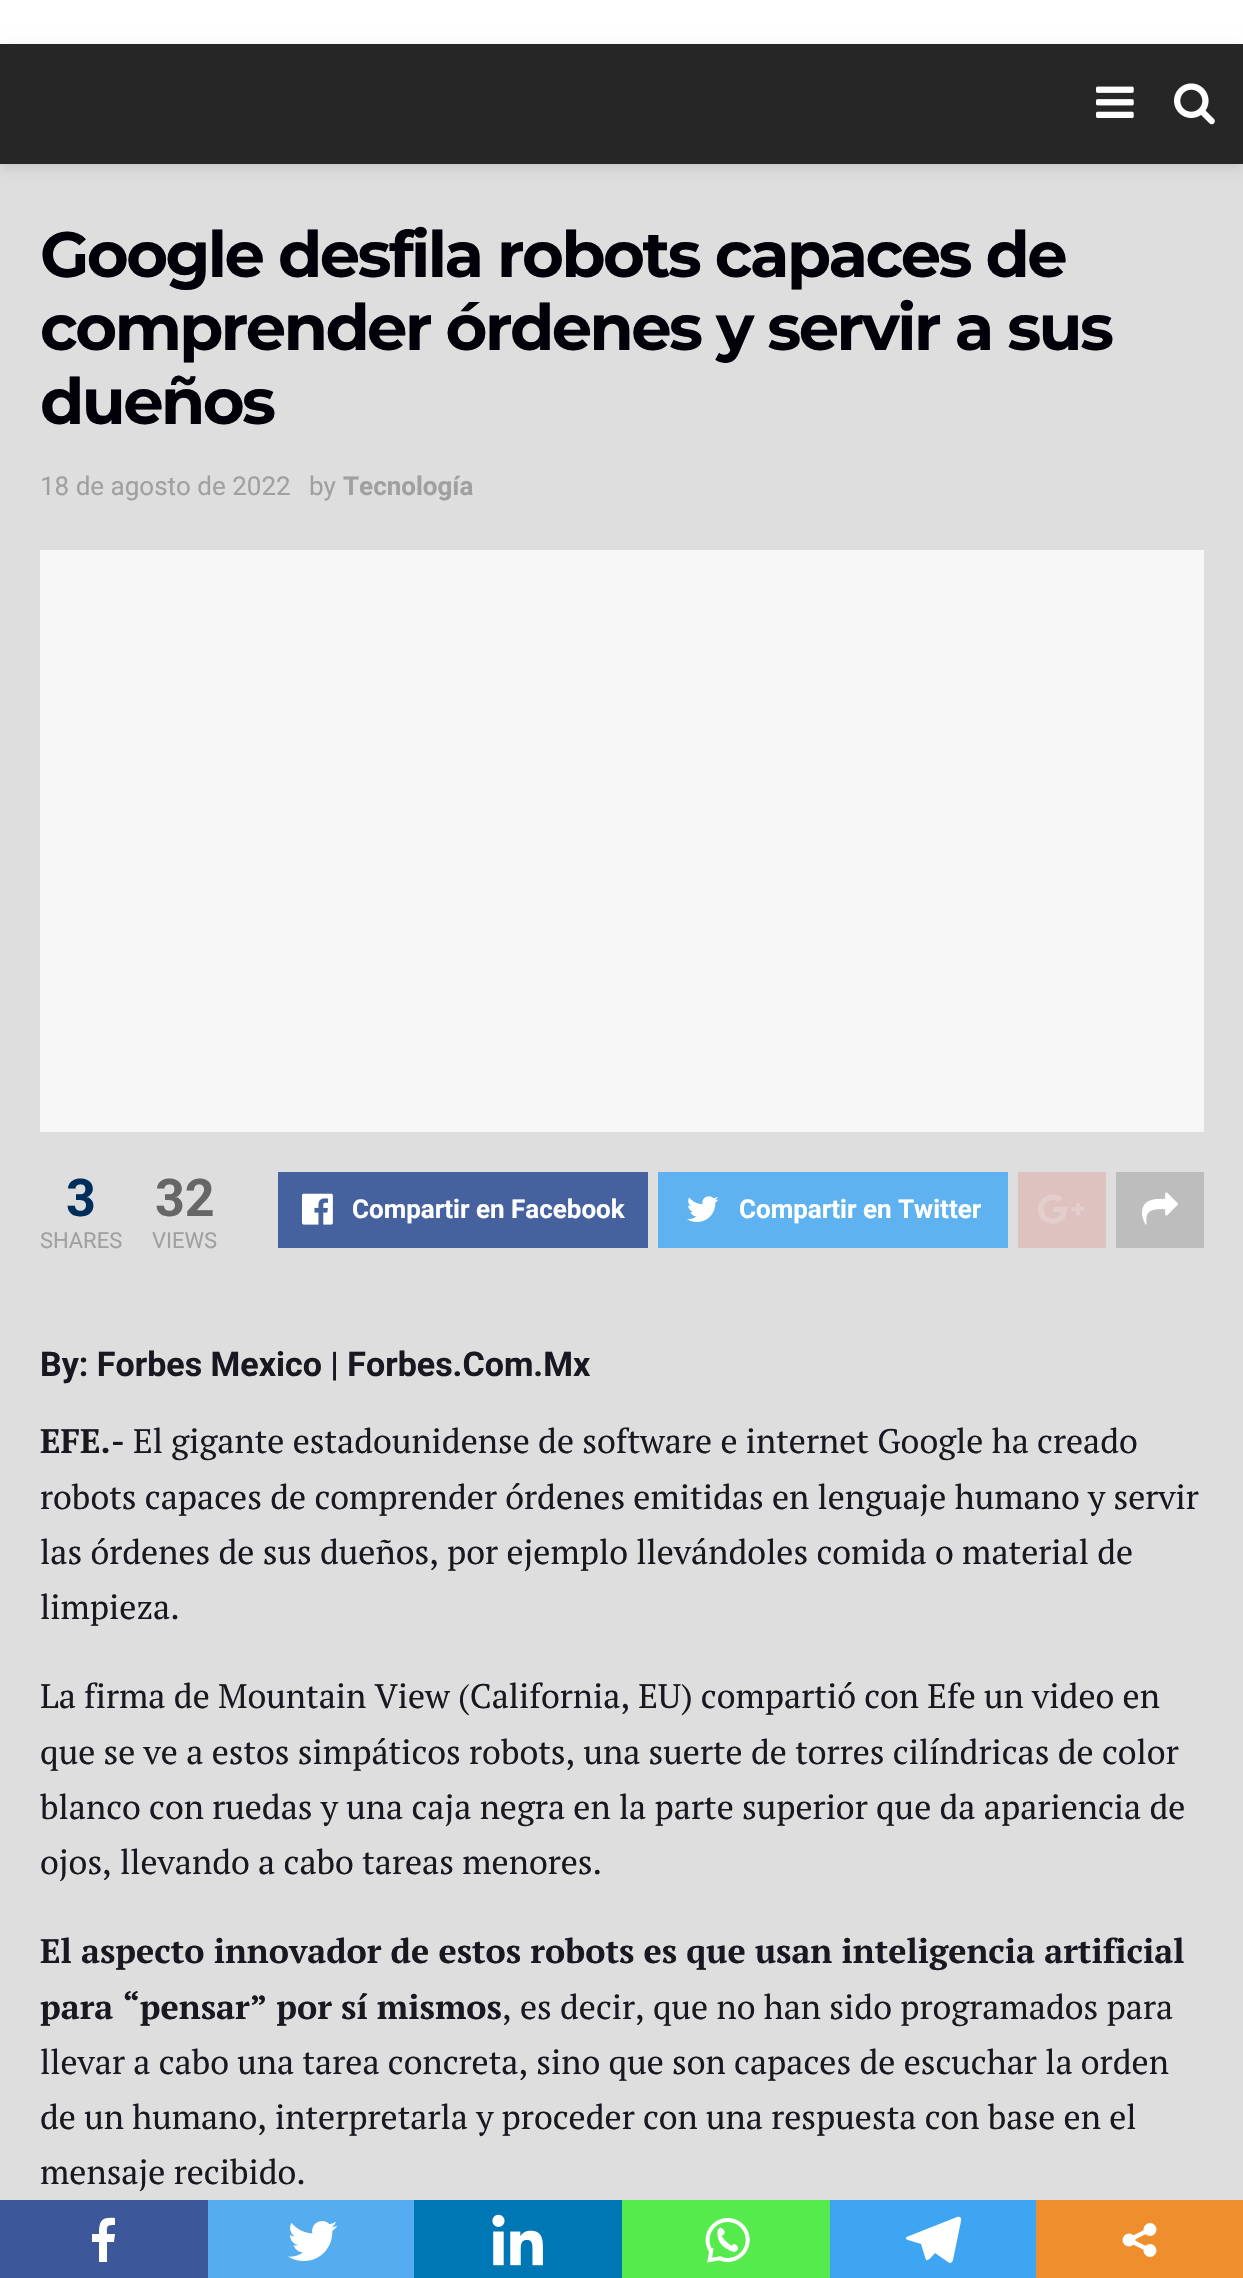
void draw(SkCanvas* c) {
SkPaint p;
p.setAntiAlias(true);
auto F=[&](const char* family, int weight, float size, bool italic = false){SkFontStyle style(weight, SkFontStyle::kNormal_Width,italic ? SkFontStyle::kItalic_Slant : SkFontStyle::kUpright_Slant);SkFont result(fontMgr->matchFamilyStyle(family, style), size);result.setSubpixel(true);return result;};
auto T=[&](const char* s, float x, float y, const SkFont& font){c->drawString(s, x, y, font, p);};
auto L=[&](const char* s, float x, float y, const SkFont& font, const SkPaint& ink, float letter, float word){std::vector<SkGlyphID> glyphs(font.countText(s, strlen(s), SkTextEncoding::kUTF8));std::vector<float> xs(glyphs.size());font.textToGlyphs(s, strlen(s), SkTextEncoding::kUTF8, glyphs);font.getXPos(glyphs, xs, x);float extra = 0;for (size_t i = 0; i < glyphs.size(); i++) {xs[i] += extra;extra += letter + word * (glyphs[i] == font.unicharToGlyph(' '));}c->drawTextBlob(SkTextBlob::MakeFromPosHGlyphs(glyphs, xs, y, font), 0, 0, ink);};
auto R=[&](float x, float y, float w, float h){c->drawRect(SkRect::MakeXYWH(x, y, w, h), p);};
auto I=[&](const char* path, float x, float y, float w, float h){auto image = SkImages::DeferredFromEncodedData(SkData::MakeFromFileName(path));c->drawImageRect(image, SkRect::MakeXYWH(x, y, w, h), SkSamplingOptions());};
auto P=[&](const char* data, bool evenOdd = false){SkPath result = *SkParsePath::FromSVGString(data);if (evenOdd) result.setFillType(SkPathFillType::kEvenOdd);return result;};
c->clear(0xffffffff);
p.setColor(0xffdedede);
R(0,164,1243,2036);
p.setColor(0x1a000000);
p.setMaskFilter(SkMaskFilter::MakeBlur(kNormal_SkBlurStyle, 6));
c->drawRect(SkRect::MakeXYWH(0,48,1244,120),p);
p.setMaskFilter(nullptr);
p.setColor(0xff262626);
R(0,44,1243,120);
I("1.png",1096,86,38,32);
I("2.png",1174,83,41,42);
auto f1 = F("Montserrat",700,64);
p.setColor(0xff02010a);
L("Google desfila robots capaces de",40,277,f1,p,-2.55,0);
L("comprender órdenes y servir a sus",40,350,f1,p,-2.55,0);
L("dueños",40,424,f1,p,-2.55,0);
auto f2 = F("Roboto",400,26);
p.setColor(0xffa0a0a0);
T("18 de agosto de 2022",40,495,f2);
T("by",309,495,f2);
auto f3 = F("Roboto",700,26);
T("Tecnología",343,495,f3);
p.setColor(0xfff7f7f7);
R(40,550,1164,582);
auto f4 = F("Roboto",700,52);
p.setColor(0xff002e5b);
T("3",66,1216,f4);
auto f5 = F("Roboto",400,22);
p.setColor(0xffa0a0a0);
T("SHARES",40,1248,f5);
p.setColor(0xff666666);
T("32",155,1216,f4);
p.setColor(0xffa0a0a0);
T("VIEWS",152,1248,f5);
p.setColor(0xff45629f);
R(278,1172,370,76);
I("3.png",302,1193,31,32);
p.setColor(0xffffffff);
T("Compartir en Facebook",352,1218,f3);
p.setColor(0xff5eb2ef);
R(658,1172,350,76);
I("4.png",687,1196,32,26);
p.setColor(0xffffffff);
T("Compartir en Twitter",739,1218,f3);
p.setColor(0xffdec2bf);
R(1018,1172,88,76);
I("5.png",1038,1194,46,30);
p.setColor(0xffbdbdbd);
R(1116,1172,88,76);
I("6.png",1142,1192,36,33);
auto f6 = F("Roboto",700,34);
p.setColor(0xff191820);
T("By: Forbes Mexico | Forbes.Com.Mx",40,1376,f6);
auto f7 = F("PT Serif",700,34);
T("EFE.-",40,1453,f7);
auto f8 = F("PT Serif",400,34);
T("El gigante estadounidense de software e internet Google ha creado",133,1453,f8);
T("robots capaces de comprender órdenes emitidas en lenguaje humano y servir",40,1509,f8);
T("las órdenes de sus dueños, por ejemplo llevándoles comida o material de",40,1564,f8);
T("limpieza.",40,1619,f8);
T("La firma de Mountain View (California, EU) compartió con Efe un video en",40,1708,f8);
T("que se ve a estos simpáticos robots, una suerte de torres cilíndricas de color",40,1764,f8);
T("blanco con ruedas y una caja negra en la parte superior que da apariencia de",40,1819,f8);
T("ojos, llevando a cabo tareas menores.",40,1874,f8);
T("El aspecto innovador de estos robots es que usan inteligencia artificial",40,1963,f7);
T("para “pensar” por sí mismos",40,2019,f7);
T(", es decir, que no han sido programados para",502,2019,f8);
T("llevar a cabo una tarea concreta, sino que son capaces de escuchar la orden",40,2074,f8);
T("de un humano, interpretarla y proceder con una respuesta con base en el",40,2129,f8);
T("mensaje recibido.",40,2184,f8);
p.setColor(0xff3c589a);
R(0,2200,208,78);
p.setColor(0xffffffff);
c->drawPath(P("M107 2262v-20h7l1-8h-8c0-8-1-9 8-9v-7c-14-1-16 3-16 16h-7v8h7v20z"),p);
p.setColor(0xff55acee);
R(208,2200,206,78);
I("7.png",288,2221,50,41);
p.setColor(0xff0077b5);
R(414,2200,208,78);
I("8.png",492,2214,51,52);
p.setColor(0xff55eb4c);
R(622,2200,208,78);
I("9.png",705,2218,45,45);
p.setColor(0xff3da5f1);
R(830,2200,206,78);
p.setColor(0xffffffff);
c->drawPath(P("M957 2217l-48 19c-4 1-4 3-1 4l13 4l5 16c2 2 8-6 9-7l13 9c2 2 4 1 5-2l8-39c1-3-1-5-4-4z"),p);
p.setColor(0xffee8e2d);
R(1036,2200,207,78);
p.setColor(0xffffffff);
c->drawCircle(1129,2240,6.5,p);
c->drawCircle(1150,2229.5,6.5,p);
c->drawCircle(1150,2250.5,6.5,p);
p.setStroke(true);
p.setStrokeWidth(4.2);
c->drawPath(P("M1129 2240l21-10.5m0 21l-21-10.5"),p);
}
